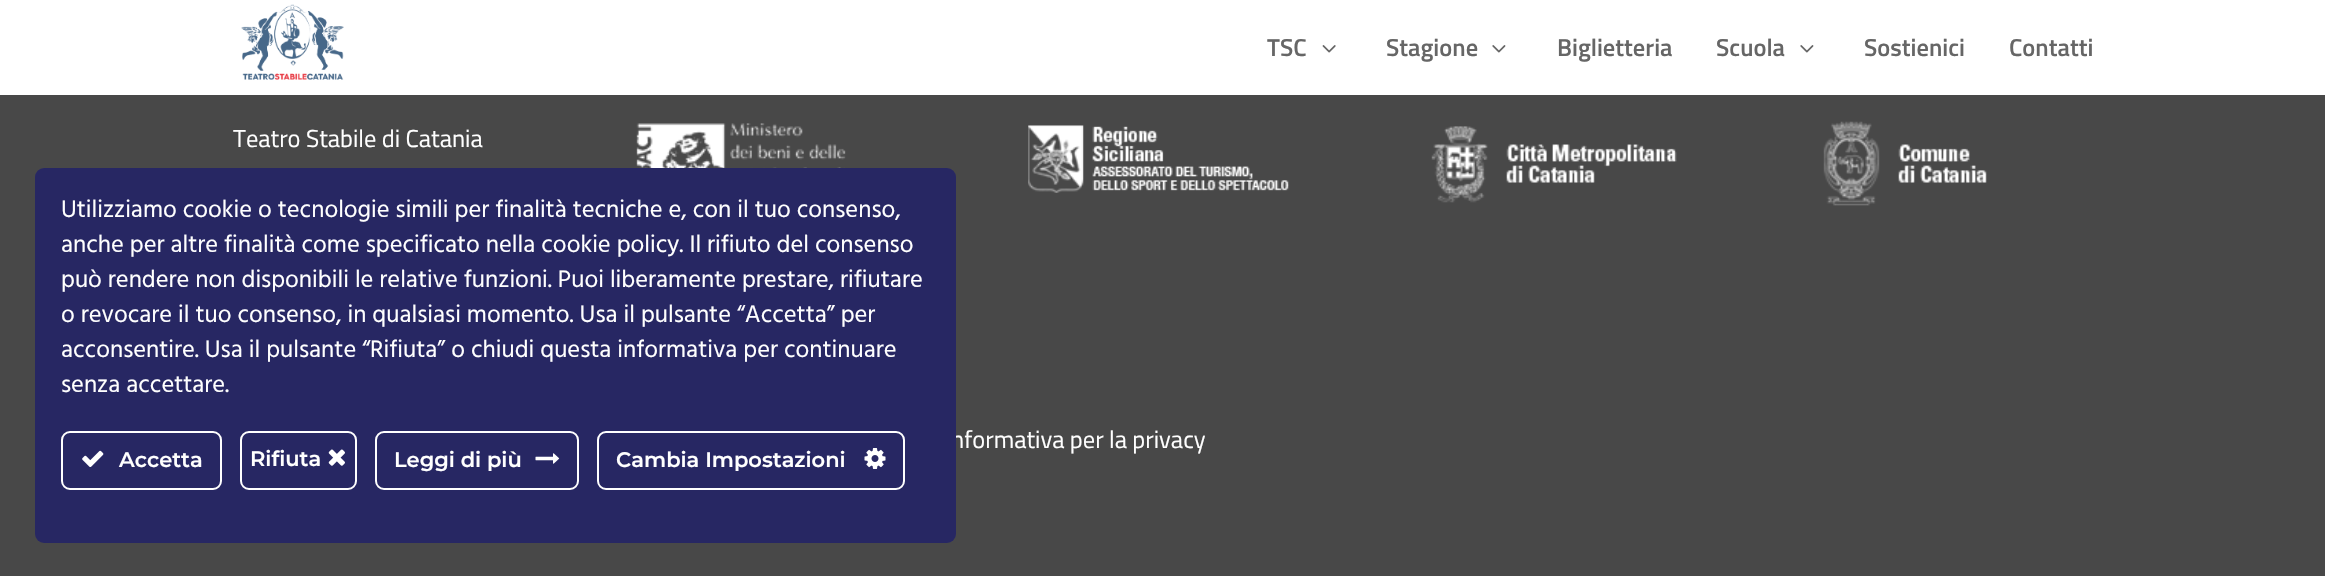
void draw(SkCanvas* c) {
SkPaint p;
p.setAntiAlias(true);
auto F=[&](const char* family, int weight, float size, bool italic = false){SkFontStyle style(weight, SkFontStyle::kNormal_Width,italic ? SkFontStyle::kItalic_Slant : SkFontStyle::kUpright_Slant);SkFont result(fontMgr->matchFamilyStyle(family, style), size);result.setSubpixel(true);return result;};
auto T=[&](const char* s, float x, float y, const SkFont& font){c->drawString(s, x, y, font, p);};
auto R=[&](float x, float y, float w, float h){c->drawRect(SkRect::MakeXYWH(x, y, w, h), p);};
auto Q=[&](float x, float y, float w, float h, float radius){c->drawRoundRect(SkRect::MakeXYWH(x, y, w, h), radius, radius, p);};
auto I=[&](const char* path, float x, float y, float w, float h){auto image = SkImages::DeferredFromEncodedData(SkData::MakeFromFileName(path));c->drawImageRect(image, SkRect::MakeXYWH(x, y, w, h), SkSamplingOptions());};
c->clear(0xff484848);
p.setColor(0xffffffff);
R(0,0,2325,95);
I("1.png",241,4,103,76);
auto f1 = F("Titillium Web",600,24.5);
p.setColor(0xff666666);
T("TSC",1267,56,f1);
I("2.png",1322,45,14,8);
T("Stagione",1386,56,f1);
I("3.png",1492,45,14,8);
T("Biglietteria",1557,56,f1);
T("Scuola",1716,56,f1);
I("3.png",1800,45,14,8);
T("Sostienici",1864,56,f1);
T("Contatti",2009,56,f1);
auto f2 = F("Titillium Web",400,24.5);
p.setColor(0xffffffff);
T("Teatro Stabile di Catania",233,147,f2);
I("4.png",636,123,210,45);
I("5.png",1028,125,261,68);
I("6.png",1431,126,246,77);
I("7.png",1823,121,164,85);
T("nformativa per la privacy",951,448,f2);
p.setColor(0xff272763);
Q(35,168,921,375,9);
auto f3 = F("Hind",400,24.5);
p.setColor(0xffffffff);
T("Utilizziamo cookie o tecnologie simili per finalità tecniche e, con il tuo consenso,",61,217,f3);
T("anche per altre finalità come specificato nella cookie policy. Il rifiuto del consenso",61,252,f3);
T("può rendere non disponibili le relative funzioni. Puoi liberamente prestare, rifiutare",61,287,f3);
T("o revocare il tuo consenso, in qualsiasi momento. Usa il pulsante “Accetta” per",61,322,f3);
T("acconsentire. Usa il pulsante “Rifiuta” o chiudi questa informativa per continuare",61,357,f3);
T("senza accettare.",61,392,f3);
p.setStroke(true);
p.setStrokeWidth(2);
c->drawRoundRect(SkRect::MakeXYWH(62,432,159,57),8,8,p);
I("8.png",82,450,22,17);
auto f4 = F("Montserrat",600,21);
p.setStroke(false);
T("Accetta",119,467,f4);
p.setStroke(true);
c->drawRoundRect(SkRect::MakeXYWH(241,432,115,57),8,8,p);
p.setStroke(false);
T("Rifiuta",250,466,f4);
I("9.png",328,449,17,17);
p.setStroke(true);
c->drawRoundRect(SkRect::MakeXYWH(376,432,202,57),8,8,p);
p.setStroke(false);
T("Leggi di più",394,467,f4);
I("10.png",535,453,25,11);
p.setStroke(true);
c->drawRoundRect(SkRect::MakeXYWH(598,432,306,57),8,8,p);
p.setStroke(false);
T("Cambia Impostazioni",616,467,f4);
I("11.png",864,448,22,21);
}
